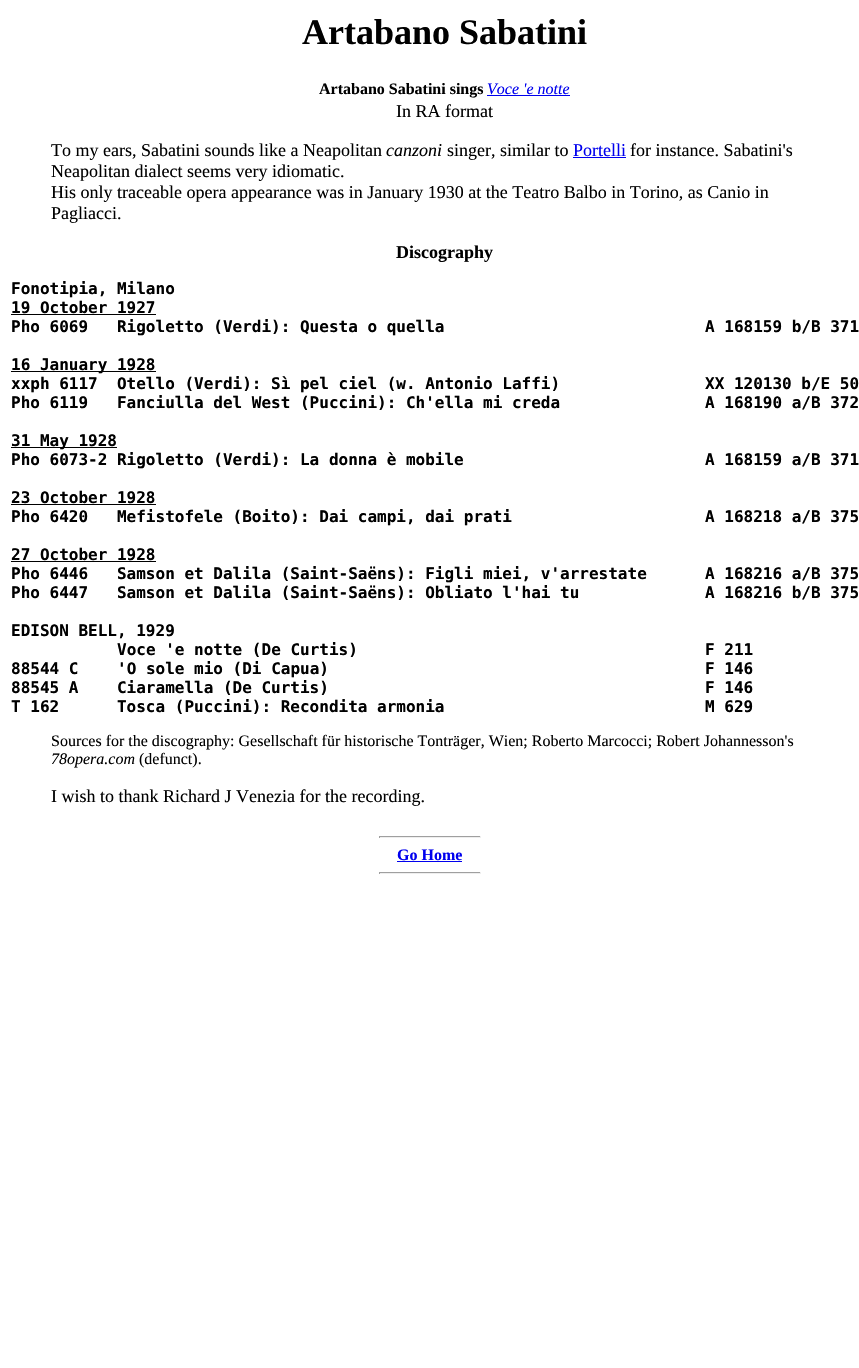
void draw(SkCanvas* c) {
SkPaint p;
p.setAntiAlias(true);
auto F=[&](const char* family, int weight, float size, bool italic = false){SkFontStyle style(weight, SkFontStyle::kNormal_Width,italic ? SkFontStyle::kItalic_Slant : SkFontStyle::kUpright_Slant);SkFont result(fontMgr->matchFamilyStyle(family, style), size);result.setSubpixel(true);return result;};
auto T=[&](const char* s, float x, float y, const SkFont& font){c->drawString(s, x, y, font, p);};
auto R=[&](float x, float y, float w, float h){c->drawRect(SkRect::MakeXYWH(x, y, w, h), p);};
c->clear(0xffffffff);
auto f1 = F("Liberation Serif",700,36);
p.setColor(0xff000000);
T("Artabano Sabatini",302,44,f1);
auto f2 = F("Liberation Serif",700,16);
T("Artabano Sabatini sings",319,94,f2);
auto f3 = F("Liberation Serif",400,16,true);
p.setColor(0xff0000ee);
T("Voce 'e notte",487,94,f3);
R(487,95,83,1);
auto f4 = F("Liberation Serif",400,18);
p.setColor(0xff000000);
T("In RA format",396,117,f4);
T("To my ears, Sabatini sounds like a Neapolitan",51,156,f4);
auto f5 = F("Liberation Serif",400,18,true);
T("canzoni",386,156,f5);
T("singer, similar to",447,156,f4);
p.setColor(0xff0000ee);
T("Portelli",573,156,f4);
R(573,157,53,1);
p.setColor(0xff000000);
T("for instance. Sabatini's",630,156,f4);
T("Neapolitan dialect seems very idiomatic.",51,177,f4);
T("His only traceable opera appearance was in January 1930 at the Teatro Balbo in Torino, as Canio in",51,198,f4);
T("Pagliacci.",51,219,f4);
auto f6 = F("Liberation Serif",700,18);
T("Discography",396,258,f6);
auto f7 = F("DejaVu Sans Mono",700,16);
T("Fonotipia, Milano",11,294,f7);
T("19 October 1927",11,313,f7);
R(11,314,145,1);
T("Pho 6069   Rigoletto (Verdi): Questa o quella",11,332,f7);
T("A 168159 b/B 371",705,332,f7);
R(11,371,145,1);
T("16 January 1928",11,370,f7);
T("xxph 6117  Otello (Verdi): Sì pel ciel (w. Antonio Laffi)",11,389,f7);
T("XX 120130 b/E 50",705,389,f7);
T("Pho 6119   Fanciulla del West (Puccini): Ch'ella mi creda",11,408,f7);
T("A 168190 a/B 372",705,408,f7);
R(11,447,106,1);
T("31 May 1928",11,446,f7);
T("Pho 6073-2 Rigoletto (Verdi): La donna è mobile",11,465,f7);
T("A 168159 a/B 371",705,465,f7);
T("23 October 1928",11,503,f7);
R(11,504,145,1);
T("Pho 6420   Mefistofele (Boito): Dai campi, dai prati",11,522,f7);
T("A 168218 a/B 375",705,522,f7);
T("27 October 1928",11,560,f7);
R(11,561,145,1);
T("Pho 6446   Samson et Dalila (Saint-Saëns): Figli miei, v'arrestate",11,579,f7);
T("A 168216 a/B 375",705,579,f7);
T("Pho 6447   Samson et Dalila (Saint-Saëns): Obliato l'hai tu",11,598,f7);
T("A 168216 b/B 375",705,598,f7);
T("EDISON BELL, 1929",11,636,f7);
T("Voce 'e notte (De Curtis)",117,655,f7);
T("F 211",705,655,f7);
T("88544 C",11,674,f7);
T("'O sole mio (Di Capua)",117,674,f7);
T("F 146",705,674,f7);
T("88545 A    Ciaramella (De Curtis)",11,693,f7);
T("F 146",705,693,f7);
T("T 162      Tosca (Puccini): Recondita armonia",11,712,f7);
T("M 629",705,712,f7);
auto f8 = F("Liberation Serif",400,16);
T("Sources for the discography: Gesellschaft für historische Tonträger, Wien; Roberto Marcocci; Robert Johannesson's",51,746,f8);
T("78opera.com",51,764,f3);
T("(defunct).",139,764,f8);
T("I wish to thank Richard J Venezia for the recording.",51,802,f4);
p.setColor(0xff9f9f9f);
R(379,836,102,1);
p.setColor(0xffeeeeee);
R(480,836,1,2);
R(379,837,102,1);
p.setColor(0xff9f9f9f);
R(379,836,1,2);
p.setColor(0xff0000ee);
T("Go Home",397,860,f2);
R(397,861,65,1);
p.setColor(0xff9f9f9f);
R(379,872,102,1);
p.setColor(0xffeeeeee);
R(480,872,1,2);
R(379,873,102,1);
p.setColor(0xff9f9f9f);
R(379,872,1,2);
}
